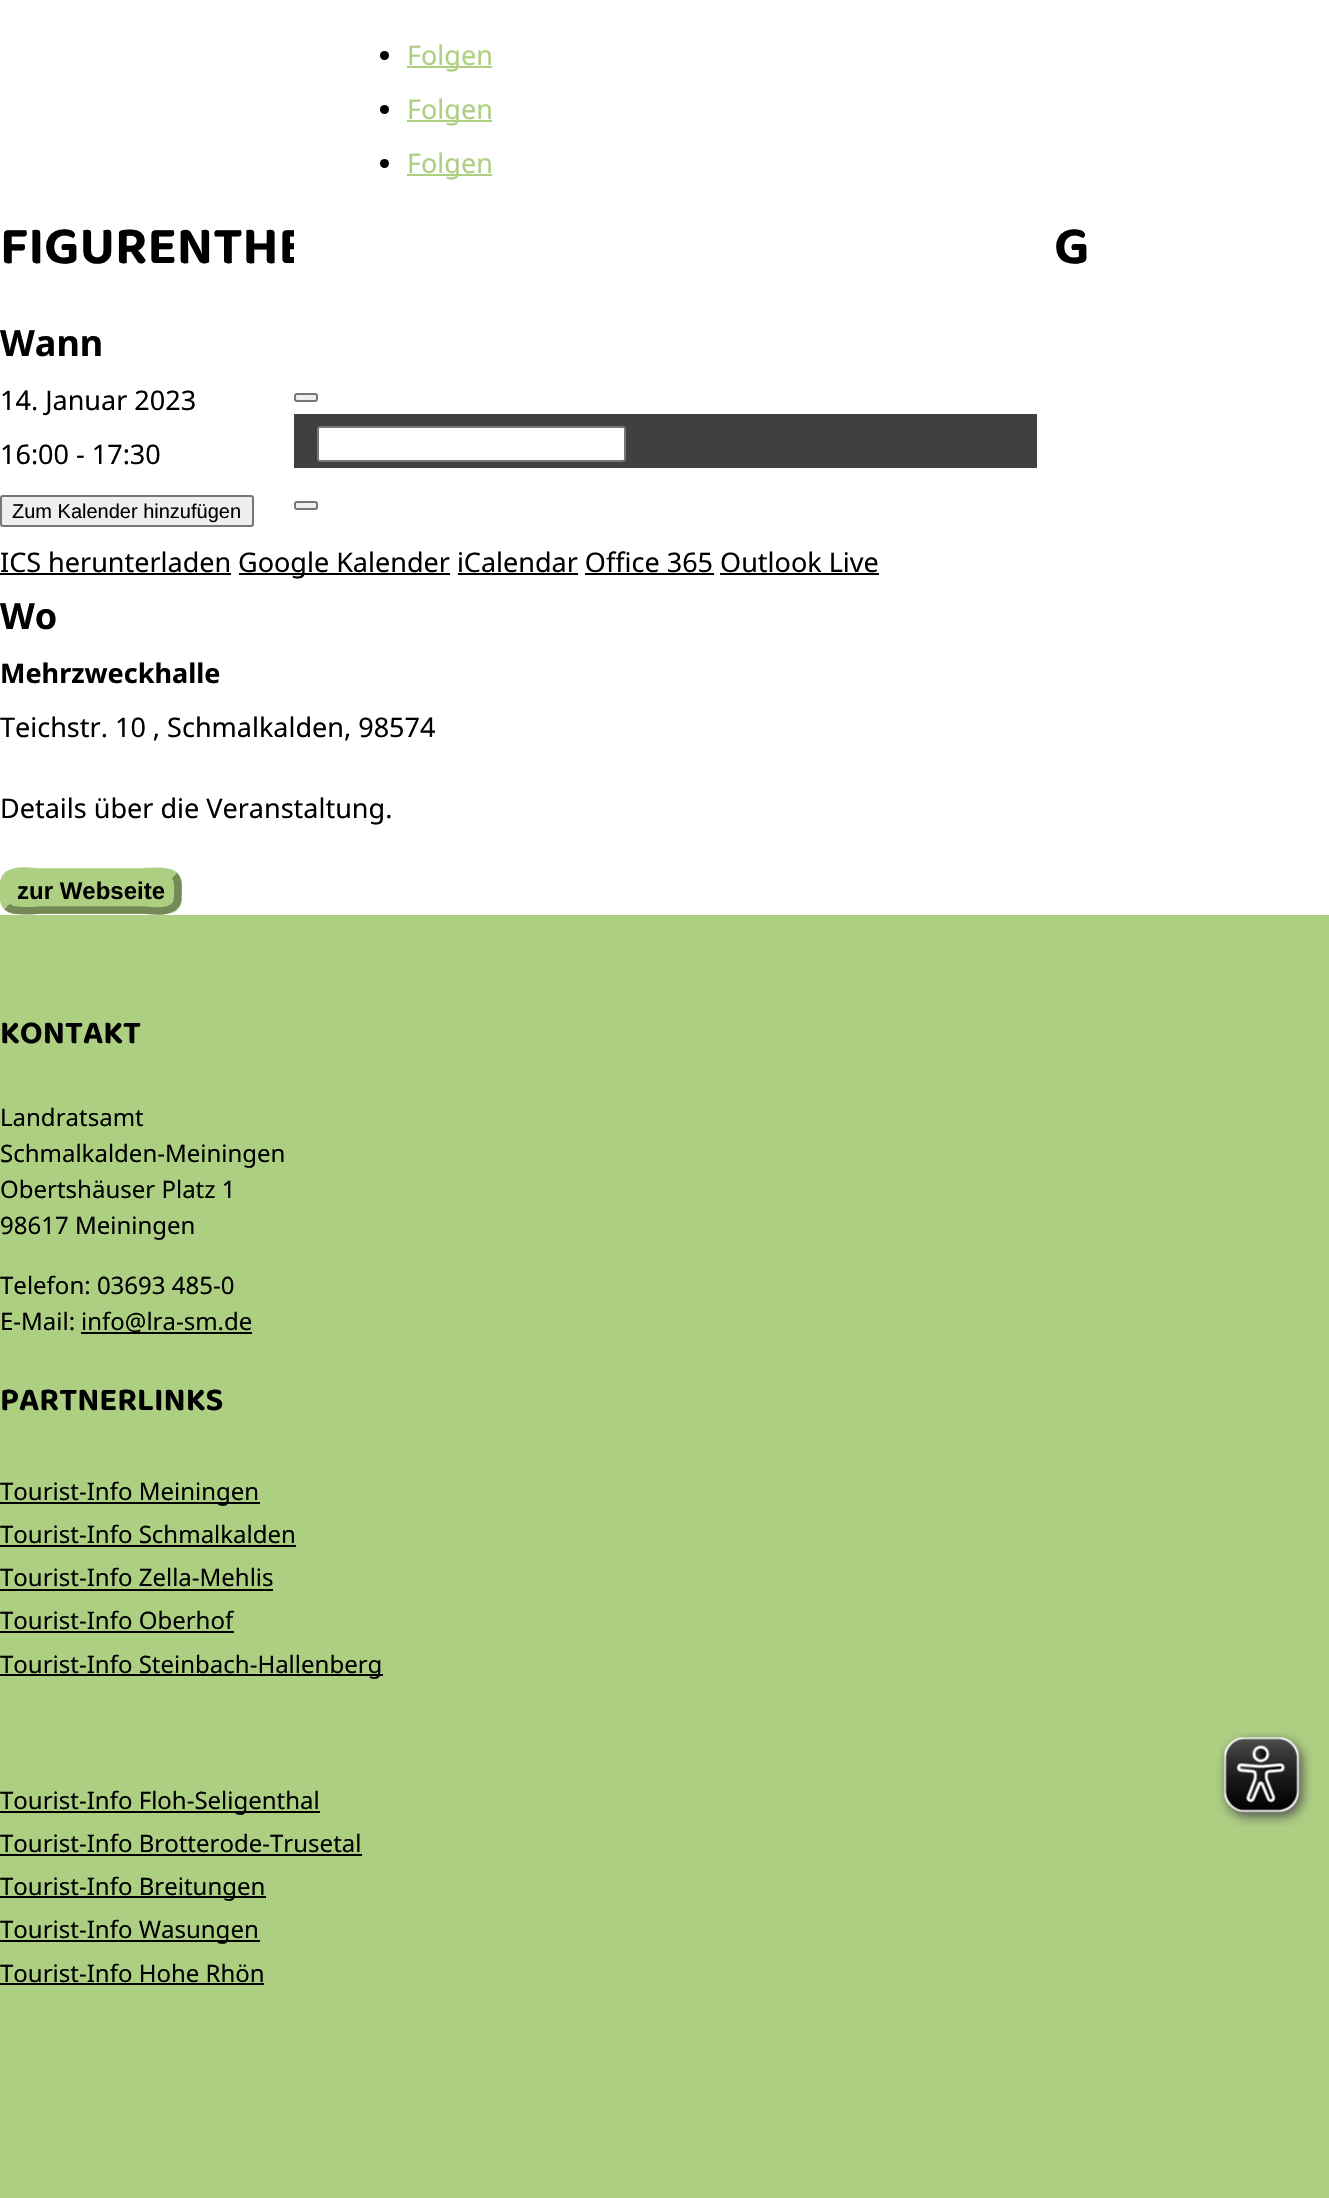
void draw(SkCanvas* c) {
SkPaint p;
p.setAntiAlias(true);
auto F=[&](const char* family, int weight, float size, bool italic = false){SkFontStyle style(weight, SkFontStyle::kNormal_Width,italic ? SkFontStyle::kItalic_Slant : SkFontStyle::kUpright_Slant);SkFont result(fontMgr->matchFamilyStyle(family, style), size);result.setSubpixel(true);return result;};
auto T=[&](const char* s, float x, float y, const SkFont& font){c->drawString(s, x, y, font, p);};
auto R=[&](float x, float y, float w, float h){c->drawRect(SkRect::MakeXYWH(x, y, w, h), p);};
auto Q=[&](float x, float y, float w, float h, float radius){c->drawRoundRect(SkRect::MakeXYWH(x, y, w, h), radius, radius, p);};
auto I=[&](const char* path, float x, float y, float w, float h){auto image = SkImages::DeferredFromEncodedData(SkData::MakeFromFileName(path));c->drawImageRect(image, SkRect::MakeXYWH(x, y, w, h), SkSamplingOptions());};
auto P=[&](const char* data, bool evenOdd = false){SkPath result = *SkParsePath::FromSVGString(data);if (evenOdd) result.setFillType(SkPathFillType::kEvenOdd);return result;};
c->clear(0xffffffff);
auto f1 = F("Baloo Tamma 2",700,54);
p.setColor(0xff000000);
T("FIGURENTHE",0,263,f1);
p.setColor(0xffffffff);
R(294,230,12,34);
p.setColor(0xff000000);
c->drawCircle(384.5,55.5,4.5,p);
p.setColor(0xffadcf82);
R(407,66,85,2);
auto f2 = F("Noto Sans",400,27);
T("Folgen",407,65,f2);
p.setColor(0xff000000);
c->drawCircle(384.5,109.5,4.5,p);
p.setColor(0xffadcf82);
R(407,120,85,2);
T("Folgen",407,119,f2);
p.setColor(0xff000000);
c->drawCircle(384.5,163.5,4.5,p);
p.setColor(0xffadcf82);
R(407,174,85,2);
T("Folgen",407,173,f2);
p.setColor(0xffefefef);
c->drawRoundRect(SkRect::MakeXYWH(295,394,22,7),2,2,p);
p.setStroke(true);
p.setStrokeWidth(2);
p.setColor(0xff767676);
c->drawRoundRect(SkRect::MakeXYWH(295,394,22,7),2,2,p);
p.setStroke(false);
p.setColor(0xff404040);
R(294,414,743,54);
p.setColor(0xffffffff);
c->drawRoundRect(SkRect::MakeXYWH(318,427,307,34),2,2,p);
p.setStroke(true);
p.setColor(0xff767676);
c->drawRoundRect(SkRect::MakeXYWH(318,427,307,34),2,2,p);
p.setStroke(false);
p.setColor(0xffefefef);
c->drawRoundRect(SkRect::MakeXYWH(295,502,22,7),2,2,p);
p.setStroke(true);
p.setColor(0xff767676);
c->drawRoundRect(SkRect::MakeXYWH(295,502,22,7),2,2,p);
p.setStroke(false);
p.setColor(0xff000000);
T("G",1054,263,f1);
auto f3 = F("Noto Sans",700,36);
T("Wann",0,356,f3);
T("14. Januar 2023",0,410,f2);
T("16:00 - 17:30",0,464,f2);
p.setColor(0xffefefef);
c->drawRoundRect(SkRect::MakeXYWH(1,496,252,30),2,2,p);
p.setStroke(true);
p.setColor(0xff767676);
c->drawRoundRect(SkRect::MakeXYWH(1,496,252,30),2,2,p);
auto f4 = F("Liberation Sans",400,20);
p.setStroke(false);
p.setColor(0xff000000);
T("Zum Kalender hinzufügen",12,518,f4);
T("ICS herunterladen",0,572,f2);
R(0,573,231,2);
R(239,573,211,2);
T("Google Kalender iCalendar Office 365 Outlook Live",238,572,f2);
R(458,573,120,2);
R(585,573,129,2);
R(720,573,159,2);
T("Wo",0,629,f3);
auto f5 = F("Noto Sans",700,27);
T("Mehrzweckhalle",0,683,f5);
T("Teichstr. 10 , Schmalkalden, 98574",0,737,f2);
T("Details über die Veranstaltung.",0,818,f2);
p.setColor(0xffadcf82);
Q(0,869,182,45,15);
p.setStroke(true);
p.setStrokeWidth(7.5);
p.setColor(0xff738a57);
c->drawPath(P("M174.5 875.5c4 4 3.5 10 3.5 15.5l-.5 9.5c-3 15-29 9.5-36.5 9.5h-101c-2.5 0-26 3.5-33-3.5"),p);
p.setColor(0xffadcf82);
c->drawPath(P("M7 906.5c-4-4-3-10-3-15.5v-9.5c3-15 29-9.5 36-9.5h101c3 0 26.5-3.5 33.5 3.5"),p);
auto f6 = F("Liberation Sans",700,24);
p.setStroke(false);
p.setColor(0xff000000);
T("zur Webseite",17,899,f6);
p.setColor(0xffadcf82);
R(0,915,1329,1283);
auto f7 = F("Baloo Tamma 2",700,33);
p.setColor(0xff000000);
T("KONTAKT",0,1043,f7);
auto f8 = F("Noto Sans",400,24);
T("Landratsamt",0,1126,f8);
T("Schmalkalden-Meiningen",0,1162,f8);
T("Obertshäuser Platz 1",0,1198,f8);
T("98617 Meiningen",0,1234,f8);
T("Telefon: 03693 485-0",0,1294,f8);
T("E-Mail:",0,1330,f8);
R(81,1332,171,2);
T("info@lra-sm.de",81,1330,f8);
T("PARTNERLINKS",0,1410,f7);
R(0,1502,260,2);
T("Tourist-Info Meiningen",0,1500,f8);
T("Tourist-Info Schmalkalden",0,1543,f8);
R(0,1545,296,2);
T("Tourist-Info Zella-Mehlis",0,1586,f8);
R(0,1589,273,2);
T("Tourist-Info Oberhof",0,1629,f8);
R(0,1631,234,2);
R(0,1674,383,2);
T("Tourist-Info Steinbach-Hallenberg",0,1673,f8);
R(0,1811,320,2);
T("Tourist-Info Floh-Seligenthal",0,1809,f8);
T("Tourist-Info Brotterode-Trusetal",0,1852,f8);
R(0,1854,362,2);
R(0,1896,266,2);
T("Tourist-Info Breitungen",0,1895,f8);
R(0,1940,260,2);
T("Tourist-Info Wasungen",0,1938,f8);
T("Tourist-Info Hohe Rhön",0,1982,f8);
R(0,1983,264,2);
I("1.png",1217,1732,95,95);
}
